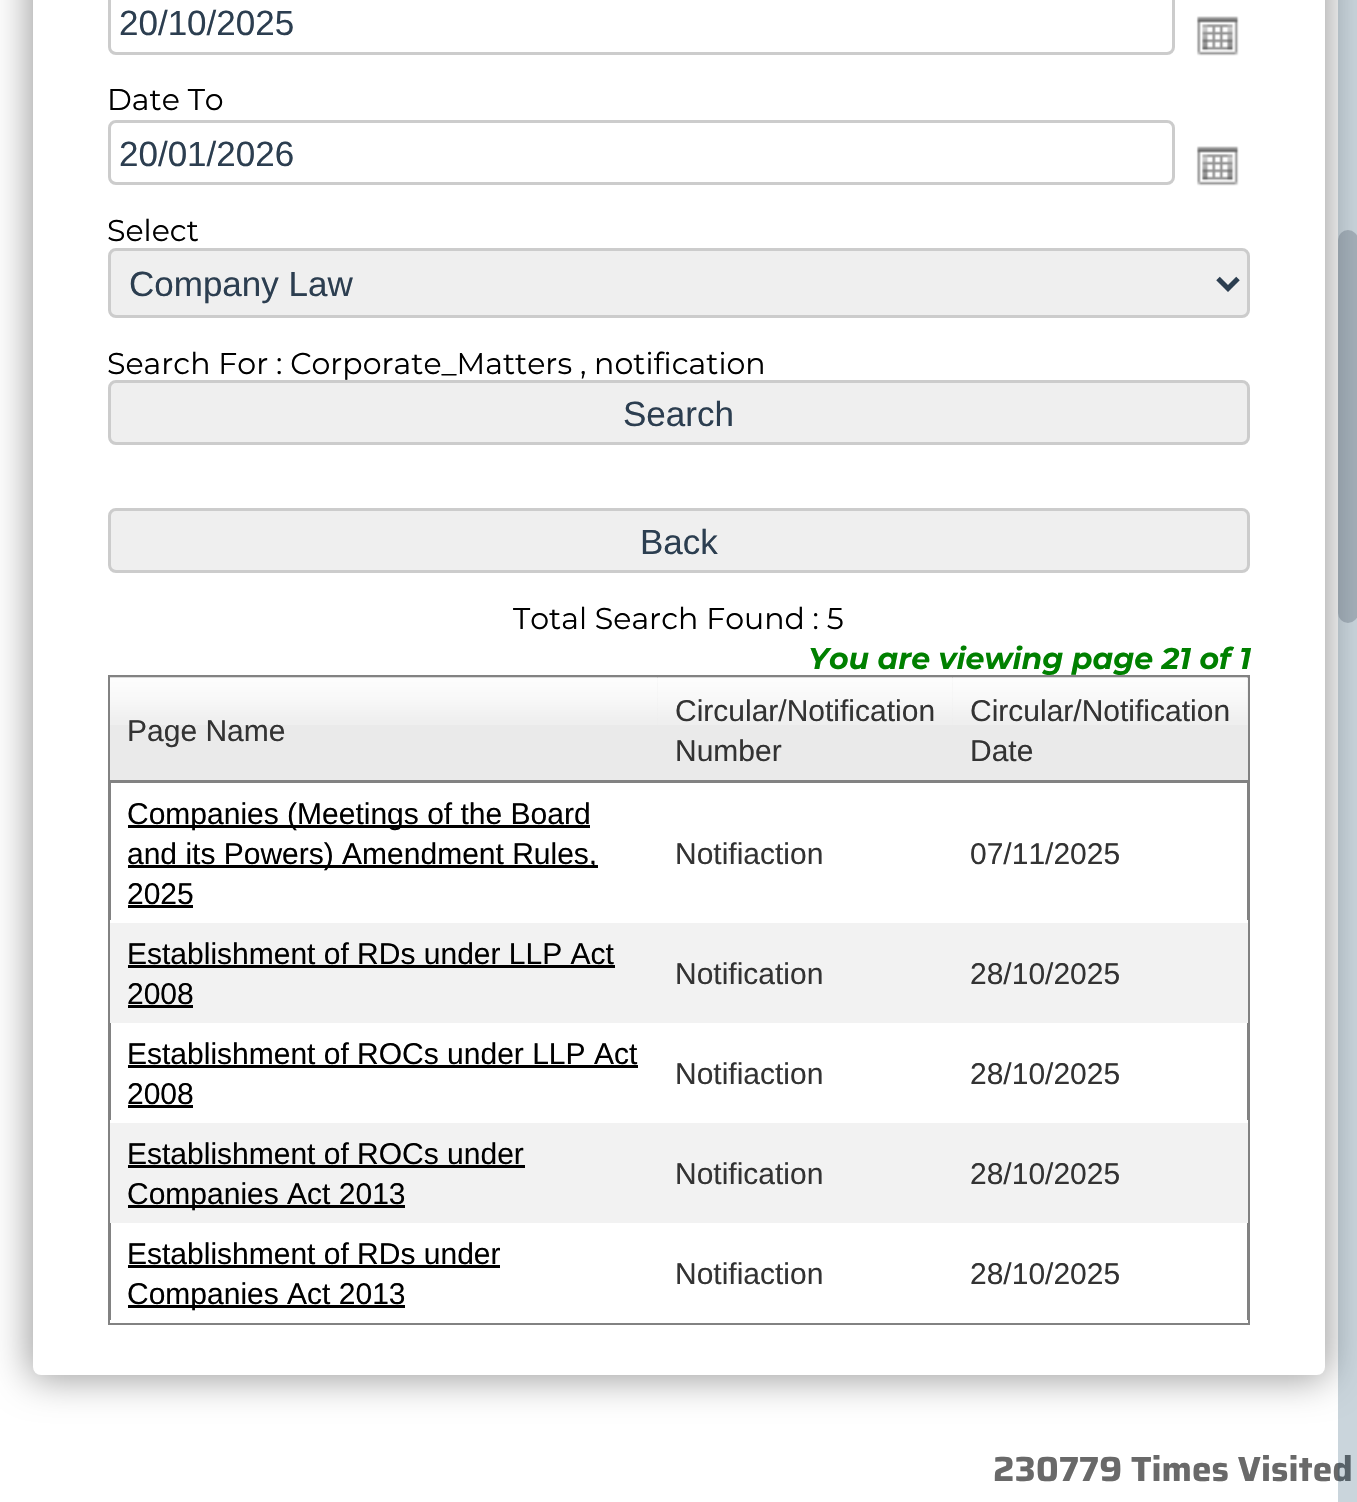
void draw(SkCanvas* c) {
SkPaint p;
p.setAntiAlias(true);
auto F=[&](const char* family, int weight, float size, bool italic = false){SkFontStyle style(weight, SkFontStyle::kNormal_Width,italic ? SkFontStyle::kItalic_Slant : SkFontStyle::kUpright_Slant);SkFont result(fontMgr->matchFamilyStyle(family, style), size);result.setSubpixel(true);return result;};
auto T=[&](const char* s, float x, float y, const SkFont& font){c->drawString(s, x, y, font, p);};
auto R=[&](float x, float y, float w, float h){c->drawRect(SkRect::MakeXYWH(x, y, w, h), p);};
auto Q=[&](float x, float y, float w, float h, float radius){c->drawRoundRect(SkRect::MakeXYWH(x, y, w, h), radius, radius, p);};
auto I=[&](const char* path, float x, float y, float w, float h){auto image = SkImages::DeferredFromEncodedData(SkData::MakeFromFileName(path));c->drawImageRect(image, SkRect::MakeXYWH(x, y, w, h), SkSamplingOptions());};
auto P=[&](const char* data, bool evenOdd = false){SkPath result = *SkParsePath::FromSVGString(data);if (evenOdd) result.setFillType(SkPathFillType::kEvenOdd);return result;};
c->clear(0xffffffff);
p.setColor(0x66000000);
p.setMaskFilter(SkMaskFilter::MakeBlur(kNormal_SkBlurStyle, 19));
c->drawRoundRect(SkRect::MakeXYWH(30,-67,1298,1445),10,10,p);
p.setMaskFilter(nullptr);
auto f1 = F("Saira",700,35);
p.setColor(0xff696969);
T("Times Visited",1131,1481,f1);
p.setColor(0x3b1b4867);
R(1338,0,19,1502);
p.setColor(0x3b283447);
Q(1338,230,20,393,10);
p.setColor(0xffffffff);
Q(33,-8,1292,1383,8);
p.setStroke(true);
p.setStrokeWidth(3);
p.setColor(0xffcccccc);
c->drawRoundRect(SkRect::MakeXYWH(109.5,-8.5,1064,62),6.5,6.5,p);
auto f2 = F("Liberation Sans",400,35);
p.setStroke(false);
p.setColor(0xff2c3e50);
T("20/10/2025",119,35,f2);
I("1.png",1196,16,43,40);
auto f3 = F("Montserrat",400,30);
p.setColor(0xff000000);
T("Date To",107,110,f3);
p.setStroke(true);
p.setColor(0xffcccccc);
c->drawRoundRect(SkRect::MakeXYWH(109.5,121.5,1064,62),6.5,6.5,p);
p.setStroke(false);
p.setColor(0xff2c3e50);
T("20/01/2026",119,166,f2);
I("1.png",1196,146,43,40);
p.setColor(0xff000000);
T("Select",107,241,f3);
p.setColor(0xffefefef);
c->drawRoundRect(SkRect::MakeXYWH(109.5,249.5,1139,67),6.5,6.5,p);
p.setStroke(true);
p.setColor(0xffcccccc);
c->drawRoundRect(SkRect::MakeXYWH(109.5,249.5,1139,67),6.5,6.5,p);
p.setStrokeWidth(5);
p.setColor(0xff2c3e50);
c->drawPath(P("M1218 278.5l10 10l10-10"),p);
p.setStroke(false);
T("Company Law",129,296,f2);
p.setColor(0xff000000);
T("Search For : Corporate_Matters , notification",107,374,f3);
p.setColor(0xffefefef);
c->drawRoundRect(SkRect::MakeXYWH(109.5,381.5,1139,62),6.5,6.5,p);
p.setStroke(true);
p.setStrokeWidth(3);
p.setColor(0xffcccccc);
c->drawRoundRect(SkRect::MakeXYWH(109.5,381.5,1139,62),6.5,6.5,p);
p.setStroke(false);
p.setColor(0xff2c3e50);
T("Search",623,426,f2);
p.setColor(0xffefefef);
c->drawRoundRect(SkRect::MakeXYWH(109.5,509.5,1139,62),6.5,6.5,p);
p.setStroke(true);
p.setColor(0xffcccccc);
c->drawRoundRect(SkRect::MakeXYWH(109.5,509.5,1139,62),6.5,6.5,p);
p.setStroke(false);
p.setColor(0xff2c3e50);
T("Back",640,554,f2);
p.setColor(0xff000000);
T("Total Search Found : 5",513,629,f3);
p.setStroke(true);
p.setColor(0xff828282);
c->drawRect(SkRect::MakeXYWH(109.5,676.5,1139,647),p);
auto f4 = F("Montserrat",700,30,true);
p.setStroke(false);
p.setColor(0xff008000);
T("You are viewing page 21 of 1",808,669,f4);
p.setColor(0xffeaeaea);
R(110,678,1138,102);
I("2.png",110,677,548,48);
p.setColor(0xff828282);
R(110,780,1138,3);
auto f5 = F("Liberation Sans",400,30);
p.setColor(0xff333333);
T("Page Name",127,741,f5);
I("3.png",657,677,296,48);
T("Circular/Notification",675,721,f5);
T("Number",675,761,f5);
I("3.png",952,677,296,48);
T("Circular/Notification",970,721,f5);
T("Date",970,761,f5);
p.setColor(0xffffffff);
R(110,920,1,3);
p.setColor(0xff000000);
R(128,825,462,3);
T("Companies (Meetings of the Board",127,824,f5);
R(128,865,470,3);
T("and its Powers) Amendment Rules,",127,864,f5);
T("2025",127,904,f5);
R(128,905,65,3);
p.setColor(0xff333333);
T("Notifiaction",675,864,f5);
p.setColor(0xffffffff);
R(1247,920,1,3);
p.setColor(0xff333333);
T("07/11/2025",970,864,f5);
p.setColor(0xfff2f2f2);
R(110,923,1138,100);
p.setColor(0xff000000);
T("Establishment of RDs under LLP Act",127,964,f5);
R(128,965,487,3);
T("2008",127,1004,f5);
R(128,1005,65,3);
p.setColor(0xff333333);
T("Notification",675,984,f5);
T("28/10/2025",970,984,f5);
p.setColor(0xffffffff);
R(110,1120,1,3);
p.setColor(0xff000000);
T("Establishment of ROCs under LLP Act",127,1064,f5);
R(128,1065,510,3);
T("2008",127,1104,f5);
R(128,1105,65,3);
p.setColor(0xff333333);
T("Notifiaction",675,1084,f5);
p.setColor(0xffffffff);
R(1247,1120,1,3);
p.setColor(0xff333333);
T("28/10/2025",970,1084,f5);
p.setColor(0xfff2f2f2);
R(110,1123,1138,100);
p.setColor(0xff000000);
T("Establishment of ROCs under",127,1164,f5);
R(128,1165,397,3);
R(128,1205,277,3);
T("Companies Act 2013",127,1204,f5);
p.setColor(0xff333333);
T("Notification",675,1184,f5);
T("28/10/2025",970,1184,f5);
p.setColor(0xffffffff);
R(110,1320,548,3);
p.setColor(0xff000000);
T("Establishment of RDs under",127,1264,f5);
R(128,1265,372,3);
R(128,1305,277,3);
T("Companies Act 2013",127,1304,f5);
p.setColor(0xffffffff);
R(658,1322,295,1);
p.setColor(0xff333333);
T("Notifiaction",675,1284,f5);
p.setColor(0xffffffff);
R(953,1320,295,3);
p.setColor(0xff333333);
T("28/10/2025",970,1284,f5);
p.setColor(0xff696969);
T("230779",993,1481,f1);
}
